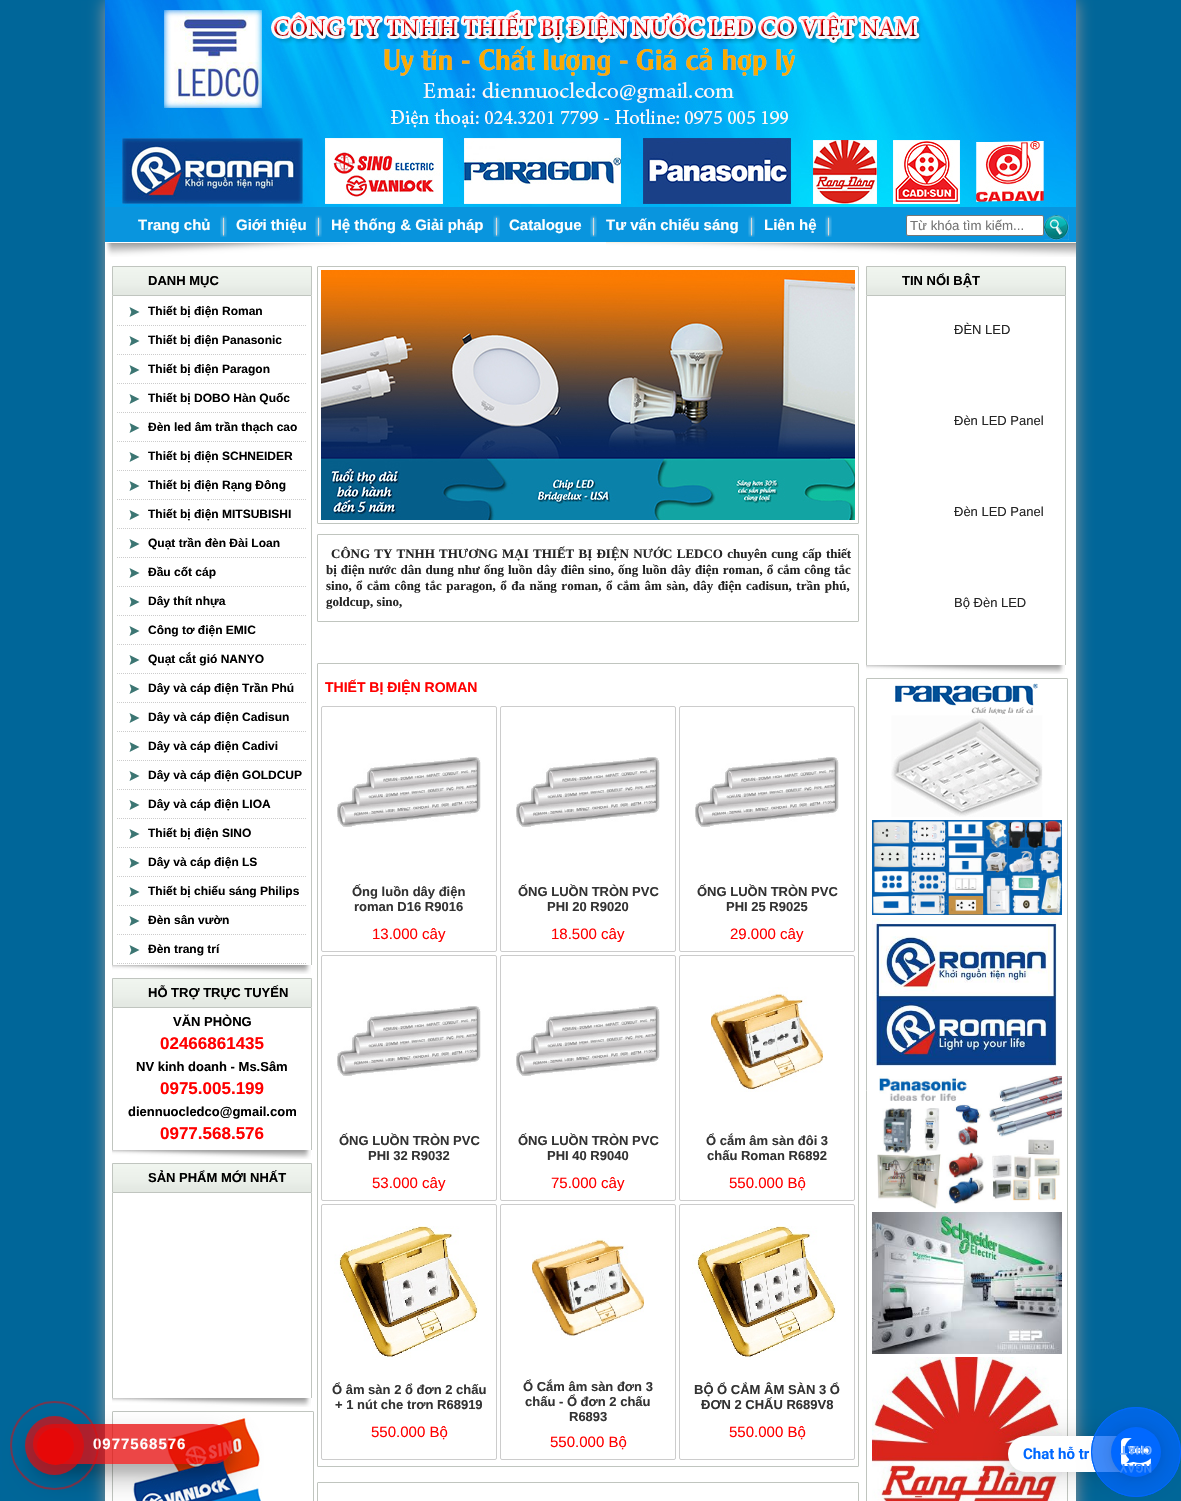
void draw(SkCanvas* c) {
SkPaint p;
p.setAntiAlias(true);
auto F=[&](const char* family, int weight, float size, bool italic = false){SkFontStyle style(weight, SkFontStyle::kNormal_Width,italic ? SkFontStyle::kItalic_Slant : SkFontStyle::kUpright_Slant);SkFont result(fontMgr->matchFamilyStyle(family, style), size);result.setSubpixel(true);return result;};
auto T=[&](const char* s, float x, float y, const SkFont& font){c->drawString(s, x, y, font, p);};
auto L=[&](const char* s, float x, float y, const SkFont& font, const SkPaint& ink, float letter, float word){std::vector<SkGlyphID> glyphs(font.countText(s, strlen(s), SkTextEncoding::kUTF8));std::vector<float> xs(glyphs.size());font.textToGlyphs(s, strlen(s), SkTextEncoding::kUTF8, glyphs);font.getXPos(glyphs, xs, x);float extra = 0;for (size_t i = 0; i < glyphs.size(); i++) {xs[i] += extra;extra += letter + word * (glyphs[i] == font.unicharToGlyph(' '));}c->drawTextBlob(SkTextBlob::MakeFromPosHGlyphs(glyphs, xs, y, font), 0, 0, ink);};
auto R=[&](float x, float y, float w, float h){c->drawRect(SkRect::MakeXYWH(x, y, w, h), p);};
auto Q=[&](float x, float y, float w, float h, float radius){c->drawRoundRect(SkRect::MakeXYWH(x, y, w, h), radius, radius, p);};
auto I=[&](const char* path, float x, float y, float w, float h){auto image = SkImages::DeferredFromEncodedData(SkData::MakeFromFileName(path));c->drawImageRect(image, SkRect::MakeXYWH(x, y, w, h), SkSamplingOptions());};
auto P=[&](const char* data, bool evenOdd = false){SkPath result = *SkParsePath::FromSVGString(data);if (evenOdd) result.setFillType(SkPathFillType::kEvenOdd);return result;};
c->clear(0xff006699);
p.setColor(0xff999999);
p.setMaskFilter(SkMaskFilter::MakeBlur(kNormal_SkBlurStyle, 8));
c->drawRect(SkRect::MakeXYWH(105,1,971,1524),p);
p.setMaskFilter(nullptr);
p.setColor(0xffffffff);
R(105,242,971,1259);
I("1.png",105,0,971,207);
I("2.png",105,207,971,50);
auto f1 = F("Liberation Sans",700,15);
T("Trang chủ",138,230,f1);
I("3.png",220,215,7,22);
T("Giới thiệu",236,230,f1);
I("3.png",315,215,7,22);
T("Hệ thống & Giải pháp",331,230,f1);
I("3.png",493,215,7,22);
T("Catalogue",509,230,f1);
I("3.png",590,215,7,22);
T("Tư vấn chiếu sáng",606,230,f1);
I("3.png",748,215,7,22);
T("Liên hệ",764,230,f1);
I("3.png",825,215,7,22);
c->drawRoundRect(SkRect::MakeXYWH(906.5,215.5,137,20),1.5,1.5,p);
p.setStroke(true);
p.setStrokeWidth(1);
p.setColor(0xff767676);
c->drawRoundRect(SkRect::MakeXYWH(906.5,215.5,137,20),1.5,1.5,p);
auto f2 = F("Liberation Sans",400,13.25);
p.setStroke(false);
p.setColor(0xff757575);
T("Từ khóa tìm kiếm...",910,230,f2);
I("4.png",1044,215,25,25);
I("5.png",112,266,200,29);
p.setStroke(true);
p.setColor(0xffc0c5bf);
c->drawPath(P("M113 266.5h198c.5 0 .5 0 .5 .5v28.5h-199v-28.5c0-.5 0-.5 .5-.5z"),p);
auto f3 = F("Liberation Sans",700,13);
p.setStroke(false);
p.setColor(0xff000000);
T("DANH MỤC",148,285,f3);
p.setColor(0xffc0c5bf);
R(311,296,1,669);
R(112,296,1,669);
p.setStroke(true);
p.setColor(0xffcccccc);
p.setPathEffect(SkDashPathEffect::Make({{1,1}}, 0));
c->drawPath(P("M117 325.5h190"),p);
p.setPathEffect(nullptr);
I("6.png",129,307,11,10);
auto f4 = F("Liberation Sans",700,12);
p.setStroke(false);
p.setColor(0xff000000);
T("Thiết bị điện Roman",148,315,f4);
p.setStroke(true);
p.setColor(0xffcccccc);
p.setPathEffect(SkDashPathEffect::Make({{1,1}}, 0));
c->drawPath(P("M117 354.5h190"),p);
p.setPathEffect(nullptr);
I("6.png",129,336,11,10);
p.setStroke(false);
p.setColor(0xff000000);
T("Thiết bị điện Panasonic",148,344,f4);
p.setStroke(true);
p.setColor(0xffcccccc);
p.setPathEffect(SkDashPathEffect::Make({{1,1}}, 0));
c->drawPath(P("M117 383.5h190"),p);
p.setPathEffect(nullptr);
I("6.png",129,365,11,10);
p.setStroke(false);
p.setColor(0xff000000);
T("Thiết bị điện Paragon",148,373,f4);
p.setStroke(true);
p.setColor(0xffcccccc);
p.setPathEffect(SkDashPathEffect::Make({{1,1}}, 0));
c->drawPath(P("M117 412.5h190"),p);
p.setPathEffect(nullptr);
I("6.png",129,394,11,10);
p.setStroke(false);
p.setColor(0xff000000);
T("Thiết bị DOBO Hàn Quốc",148,402,f4);
p.setStroke(true);
p.setColor(0xffcccccc);
p.setPathEffect(SkDashPathEffect::Make({{1,1}}, 0));
c->drawPath(P("M117 441.5h190"),p);
p.setPathEffect(nullptr);
I("6.png",129,423,11,10);
p.setStroke(false);
p.setColor(0xff000000);
T("Đèn led âm trần thạch cao",148,431,f4);
p.setStroke(true);
p.setColor(0xffcccccc);
p.setPathEffect(SkDashPathEffect::Make({{1,1}}, 0));
c->drawPath(P("M117 470.5h190"),p);
p.setPathEffect(nullptr);
I("6.png",129,452,11,10);
p.setStroke(false);
p.setColor(0xff000000);
T("Thiết bị điện SCHNEIDER",148,460,f4);
p.setStroke(true);
p.setColor(0xffcccccc);
p.setPathEffect(SkDashPathEffect::Make({{1,1}}, 0));
c->drawPath(P("M117 499.5h190"),p);
p.setPathEffect(nullptr);
I("6.png",129,481,11,10);
p.setStroke(false);
p.setColor(0xff000000);
T("Thiết bị điện Rạng Đông",148,489,f4);
p.setStroke(true);
p.setColor(0xffcccccc);
p.setPathEffect(SkDashPathEffect::Make({{1,1}}, 0));
c->drawPath(P("M117 528.5h190"),p);
p.setPathEffect(nullptr);
I("6.png",129,510,11,10);
p.setStroke(false);
p.setColor(0xff000000);
T("Thiết bị điện MITSUBISHI",148,518,f4);
p.setStroke(true);
p.setColor(0xffcccccc);
p.setPathEffect(SkDashPathEffect::Make({{1,1}}, 0));
c->drawPath(P("M117 557.5h190"),p);
p.setPathEffect(nullptr);
I("6.png",129,539,11,10);
p.setStroke(false);
p.setColor(0xff000000);
T("Quạt trần đèn Đài Loan",148,547,f4);
p.setStroke(true);
p.setColor(0xffcccccc);
p.setPathEffect(SkDashPathEffect::Make({{1,1}}, 0));
c->drawPath(P("M117 586.5h190"),p);
p.setPathEffect(nullptr);
I("6.png",129,568,11,10);
p.setStroke(false);
p.setColor(0xff000000);
T("Đầu cốt cáp",148,576,f4);
p.setStroke(true);
p.setColor(0xffcccccc);
p.setPathEffect(SkDashPathEffect::Make({{1,1}}, 0));
c->drawPath(P("M117 615.5h190"),p);
p.setPathEffect(nullptr);
I("6.png",129,597,11,10);
p.setStroke(false);
p.setColor(0xff000000);
T("Dây thít nhựa",148,605,f4);
p.setStroke(true);
p.setColor(0xffcccccc);
p.setPathEffect(SkDashPathEffect::Make({{1,1}}, 0));
c->drawPath(P("M117 644.5h190"),p);
p.setPathEffect(nullptr);
I("6.png",129,626,11,10);
p.setStroke(false);
p.setColor(0xff000000);
T("Công tơ điện EMIC",148,634,f4);
p.setStroke(true);
p.setColor(0xffcccccc);
p.setPathEffect(SkDashPathEffect::Make({{1,1}}, 0));
c->drawPath(P("M117 673.5h190"),p);
p.setPathEffect(nullptr);
I("6.png",129,655,11,10);
p.setStroke(false);
p.setColor(0xff000000);
T("Quạt cắt gió NANYO",148,663,f4);
p.setStroke(true);
p.setColor(0xffcccccc);
p.setPathEffect(SkDashPathEffect::Make({{1,1}}, 0));
c->drawPath(P("M117 702.5h190"),p);
p.setPathEffect(nullptr);
I("6.png",129,684,11,10);
p.setStroke(false);
p.setColor(0xff000000);
T("Dây và cáp điện Trần Phú",148,692,f4);
p.setStroke(true);
p.setColor(0xffcccccc);
p.setPathEffect(SkDashPathEffect::Make({{1,1}}, 0));
c->drawPath(P("M117 731.5h190"),p);
p.setPathEffect(nullptr);
I("6.png",129,713,11,10);
p.setStroke(false);
p.setColor(0xff000000);
T("Dây và cáp điện Cadisun",148,721,f4);
p.setStroke(true);
p.setColor(0xffcccccc);
p.setPathEffect(SkDashPathEffect::Make({{1,1}}, 0));
c->drawPath(P("M117 760.5h190"),p);
p.setPathEffect(nullptr);
I("6.png",129,742,11,10);
p.setStroke(false);
p.setColor(0xff000000);
T("Dây và cáp điện Cadivi",148,750,f4);
p.setStroke(true);
p.setColor(0xffcccccc);
p.setPathEffect(SkDashPathEffect::Make({{1,1}}, 0));
c->drawPath(P("M117 789.5h190"),p);
p.setPathEffect(nullptr);
I("6.png",129,771,11,10);
p.setStroke(false);
p.setColor(0xff000000);
T("Dây và cáp điện GOLDCUP",148,779,f4);
p.setStroke(true);
p.setColor(0xffcccccc);
p.setPathEffect(SkDashPathEffect::Make({{1,1}}, 0));
c->drawPath(P("M117 818.5h190"),p);
p.setPathEffect(nullptr);
I("6.png",129,800,11,10);
p.setStroke(false);
p.setColor(0xff000000);
T("Dây và cáp điện LIOA",148,808,f4);
p.setStroke(true);
p.setColor(0xffcccccc);
p.setPathEffect(SkDashPathEffect::Make({{1,1}}, 0));
c->drawPath(P("M117 847.5h190"),p);
p.setPathEffect(nullptr);
I("6.png",129,829,11,10);
p.setStroke(false);
p.setColor(0xff000000);
T("Thiết bị điện SINO",148,837,f4);
p.setStroke(true);
p.setColor(0xffcccccc);
p.setPathEffect(SkDashPathEffect::Make({{1,1}}, 0));
c->drawPath(P("M117 876.5h190"),p);
p.setPathEffect(nullptr);
I("6.png",129,858,11,10);
p.setStroke(false);
p.setColor(0xff000000);
T("Dây và cáp điện LS",148,866,f4);
p.setStroke(true);
p.setColor(0xffcccccc);
p.setPathEffect(SkDashPathEffect::Make({{1,1}}, 0));
c->drawPath(P("M117 905.5h190"),p);
p.setPathEffect(nullptr);
I("6.png",129,887,11,10);
p.setStroke(false);
p.setColor(0xff000000);
T("Thiết bị chiếu sáng Philips",148,895,f4);
p.setStroke(true);
p.setColor(0xffcccccc);
p.setPathEffect(SkDashPathEffect::Make({{1,1}}, 0));
c->drawPath(P("M117 934.5h190"),p);
p.setPathEffect(nullptr);
I("6.png",129,916,11,10);
p.setStroke(false);
p.setColor(0xff000000);
T("Đèn sân vườn",148,924,f4);
p.setStroke(true);
p.setColor(0xffcccccc);
p.setPathEffect(SkDashPathEffect::Make({{1,1}}, 0));
c->drawPath(P("M117 963.5h190"),p);
p.setPathEffect(nullptr);
I("6.png",129,945,11,10);
p.setStroke(false);
p.setColor(0xff000000);
T("Đèn trang trí",148,953,f4);
I("7.png",112,965,199,9);
I("5.png",112,978,200,29);
p.setStroke(true);
p.setColor(0xffc0c5bf);
c->drawPath(P("M113 978.5h198c.5 0 .5 0 .5 .5v28.5h-199v-28.5c0-.5 0-.5 .5-.5z"),p);
p.setStroke(false);
p.setColor(0xff000000);
T("HỖ TRỢ TRỰC TUYẾN",148,997,f3);
p.setColor(0xffc0c5bf);
R(311,1008,1,142);
R(112,1008,1,142);
p.setColor(0xff000000);
T("VĂN PHÒNG",173,1026,f3);
auto f5 = F("Liberation Sans",700,17);
p.setColor(0xffff0000);
T("02466861435",160,1049,f5);
p.setColor(0xff000000);
T("NV kinh doanh - Ms.Sâm",136,1071,f3);
p.setColor(0xffff0000);
T("0975.005.199",160,1094,f5);
p.setColor(0xff000000);
T("diennuocledco@gmail.com",128,1116,f3);
p.setColor(0xffff0000);
T("0977.568.576",160,1139,f5);
I("7.png",112,1150,199,9);
I("5.png",112,1163,200,29);
p.setStroke(true);
p.setColor(0xffc0c5bf);
c->drawPath(P("M113 1163.5h198c.5 0 .5 0 .5 .5v28.5h-199v-28.5c0-.5 0-.5 .5-.5z"),p);
p.setStroke(false);
p.setColor(0xff000000);
T("SẢN PHẨM MỚI NHẤT",148,1182,f3);
p.setColor(0xffc0c5bf);
R(311,1193,1,205);
R(112,1193,1,205);
I("7.png",112,1398,199,9);
p.setStroke(true);
c->drawRoundRect(SkRect::MakeXYWH(112.5,1411.5,201,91),.5,.5,p);
I("8.png",133,1415,129,86);
c->drawRoundRect(SkRect::MakeXYWH(317.5,266.5,541,257),.5,.5,p);
I("9.png",321,270,534,250);
c->drawRoundRect(SkRect::MakeXYWH(317.5,534.5,541,87),.5,.5,p);
auto f6 = F("Liberation Serif",700,13);
p.setStroke(false);
p.setColor(0xff252525);
L("CÔNG TY TNHH THƯƠNG MẠI THIẾT BỊ ĐIỆN NƯỚC LEDCO chuyên cung cấp thiết",331,558,f6,p,0,1);
L("bị điện nước dân dung như ống luồn dây điên sino, ống luồn dây điện roman, ổ cắm công tắc",326,574,f6,p,0,.7);
T("sino,",326,590,f6);
L("ổ cắm công tắc paragon, ổ đa năng roman, ổ cắm âm sàn, dây điện cadisun, trần phú,",356,590,f6,p,0,1.25);
T("goldcup, sino,",326,606,f6);
p.setStroke(true);
p.setColor(0xffc0c5bf);
c->drawRoundRect(SkRect::MakeXYWH(317.5,663.5,541,803),.5,.5,p);
auto f7 = F("Liberation Sans",700,14);
p.setStroke(false);
p.setColor(0xffff0000);
T("THIẾT BỊ ĐIỆN ROMAN",325,692,f7);
p.setStroke(true);
p.setColor(0xffcccccc);
c->drawRoundRect(SkRect::MakeXYWH(321.5,706.5,175,245),1.5,1.5,p);
I("10.png",337,757,144,70);
p.setStroke(false);
p.setColor(0xff333333);
T("Ống luồn dây điện",352,896,f3);
T("roman D16 R9016",354,911,f3);
auto f8 = F("Liberation Sans",400,15);
p.setColor(0xffff0000);
T("13.000 cây",372,939,f8);
p.setStroke(true);
p.setColor(0xffcccccc);
c->drawRoundRect(SkRect::MakeXYWH(500.5,706.5,175,245),1.5,1.5,p);
I("11.png",516,757,144,70);
p.setStroke(false);
p.setColor(0xff333333);
T("ỐNG LUỒN TRÒN PVC",518,896,f3);
T("PHI 20 R9020",547,911,f3);
p.setColor(0xffff0000);
T("18.500 cây",551,939,f8);
p.setStroke(true);
p.setColor(0xffcccccc);
c->drawRoundRect(SkRect::MakeXYWH(679.5,706.5,175,245),1.5,1.5,p);
I("12.png",695,757,144,70);
p.setStroke(false);
p.setColor(0xff333333);
T("ỐNG LUỒN TRÒN PVC",697,896,f3);
T("PHI 25 R9025",726,911,f3);
p.setColor(0xffff0000);
T("29.000 cây",730,939,f8);
p.setStroke(true);
p.setColor(0xffcccccc);
c->drawRoundRect(SkRect::MakeXYWH(321.5,955.5,175,245),1.5,1.5,p);
I("10.png",337,1006,144,70);
p.setStroke(false);
p.setColor(0xff333333);
T("ỐNG LUỒN TRÒN PVC",339,1145,f3);
T("PHI 32 R9032",368,1160,f3);
p.setColor(0xffff0000);
T("53.000 cây",372,1188,f8);
p.setStroke(true);
p.setColor(0xffcccccc);
c->drawRoundRect(SkRect::MakeXYWH(500.5,955.5,175,245),1.5,1.5,p);
I("11.png",516,1006,144,70);
p.setStroke(false);
p.setColor(0xff333333);
T("ỐNG LUỒN TRÒN PVC",518,1145,f3);
T("PHI 40 R9040",547,1160,f3);
p.setColor(0xffff0000);
T("75.000 cây",551,1188,f8);
p.setStroke(true);
p.setColor(0xffcccccc);
c->drawRoundRect(SkRect::MakeXYWH(679.5,955.5,175,245),1.5,1.5,p);
I("13.png",711,987,112,105);
p.setStroke(false);
p.setColor(0xff333333);
T("Ổ cắm âm sàn đôi 3",706,1145,f3);
T("chấu Roman R6892",707,1160,f3);
p.setColor(0xffff0000);
T("550.000 Bộ",729,1188,f8);
p.setStroke(true);
p.setColor(0xffcccccc);
c->drawRoundRect(SkRect::MakeXYWH(321.5,1204.5,175,255),1.5,1.5,p);
I("14.png",334,1226,144,134);
p.setStroke(false);
p.setColor(0xff333333);
T("Ổ âm sàn 2 ổ đơn 2 chấu",332,1394,f3);
T("+ 1 nút che trơn R68919",335,1409,f3);
p.setColor(0xffff0000);
T("550.000 Bộ",371,1437,f8);
p.setStroke(true);
p.setColor(0xffcccccc);
c->drawRoundRect(SkRect::MakeXYWH(500.5,1204.5,175,255),1.5,1.5,p);
I("15.png",532,1238,112,102);
p.setStroke(false);
p.setColor(0xff333333);
T("Ổ Cắm âm sàn đơn 3",523,1391,f3);
T("chấu - Ổ đơn 2 chấu",525,1406,f3);
T("R6893",569,1421,f3);
p.setColor(0xffff0000);
T("550.000 Bộ",550,1447,f8);
p.setStroke(true);
p.setColor(0xffcccccc);
c->drawRoundRect(SkRect::MakeXYWH(679.5,1204.5,175,255),1.5,1.5,p);
I("16.png",692,1226,144,134);
p.setStroke(false);
p.setColor(0xff333333);
T("BỘ Ổ CẮM ÂM SÀN 3 Ổ",694,1394,f3);
T("ĐƠN 2 CHẤU R689V8",701,1409,f3);
p.setColor(0xffff0000);
T("550.000 Bộ",729,1437,f8);
p.setStroke(true);
p.setColor(0xffc0c5bf);
c->drawRoundRect(SkRect::MakeXYWH(317.5,1482.5,541,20),.5,.5,p);
I("5.png",866,266,200,29);
c->drawPath(P("M867 266.5h198c.5 0 .5 0 .5 .5v28.5h-199v-28.5c0-.5 0-.5 .5-.5z"),p);
p.setStroke(false);
p.setColor(0xff000000);
T("TIN NỔI BẬT",902,285,f3);
p.setColor(0xffc0c5bf);
R(1065,296,1,369);
R(866,296,1,369);
auto f9 = F("Liberation Sans",400,13);
p.setColor(0xff252525);
T("ĐÈN LED",954,334,f9);
T("Đèn LED Panel",954,425,f9);
T("Đèn LED Panel",954,516,f9);
T("Bộ Đèn LED",954,607,f9);
I("7.png",866,665,199,9);
p.setStroke(true);
p.setColor(0xffc0c5bf);
c->drawRoundRect(SkRect::MakeXYWH(866.5,678.5,201,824),.5,.5,p);
I("17.png",891,683,152,134);
I("18.png",872,820,190,95);
I("19.png",872,918,185,148);
I("20.png",877,1076,185,133);
I("21.png",872,1212,190,142);
I("22.png",872,1357,190,144);
c->save();
c->clipPath(P("M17 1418h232v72h-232zm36 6h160c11 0 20 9 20 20c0 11-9 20-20 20h-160c-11 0-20-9-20-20c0-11 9-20 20-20z",true),true);
p.setStroke(false);
p.setColor(0x1a000000);
p.setMaskFilter(SkMaskFilter::MakeBlur(kNormal_SkBlurStyle, 5));
c->drawRoundRect(SkRect::MakeXYWH(33,1434,200,40),20,20,p);
p.setMaskFilter(nullptr);
c->restore();
c->save();
c->clipPath(P("M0 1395h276v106h-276zm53 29h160c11 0 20 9 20 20c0 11-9 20-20 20h-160c-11 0-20-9-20-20c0-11 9-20 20-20z",true),true);
p.setColor(0x40000000);
p.setMaskFilter(SkMaskFilter::MakeBlur(kNormal_SkBlurStyle, 14));
c->drawRoundRect(SkRect::MakeXYWH(33,1438,200,40),20,20,p);
p.setMaskFilter(nullptr);
c->restore();
p.setColor(0xbfe60808);
Q(33,1424,200,40,20);
p.setColor(0xffffffff);
L("0977568576",93,1449,f1,p,1,0);
p.setStroke(true);
p.setStrokeWidth(2);
p.setColor(0x80e60808);
c->drawCircle(54.5,1445.5,43.5,p);
p.setStroke(false);
p.setColor(0xb3e60808);
c->drawCircle(54.5,1445.5,29.5,p);
p.setColor(0xffe60808);
c->drawCircle(55.5,1446.5,18.5,p);
p.setColor(0x29000000);
p.setMaskFilter(SkMaskFilter::MakeBlur(kNormal_SkBlurStyle, 16));
c->drawRoundRect(SkRect::MakeXYWH(1008,1438,115,36),18,18,p);
p.setMaskFilter(nullptr);
p.setColor(0x0f000000);
p.setMaskFilter(SkMaskFilter::MakeBlur(kNormal_SkBlurStyle, 3));
c->drawRoundRect(SkRect::MakeXYWH(1008,1437,115,36),18,18,p);
p.setMaskFilter(nullptr);
p.setColor(0xffffffff);
c->drawPath(P("M1026 1436h97v36h-97c-10 0-18-8-18-18c0-10 8-18 18-18z"),p);
auto f10 = F("Roboto",700,15);
p.setColor(0xff0068ff);
T("Chat hỗ tr",1023,1459,f10);
p.setColor(0x800068ff);
c->drawCircle(1136,1452,44.5,p);
p.setStroke(true);
p.setStrokeWidth(1);
p.setColor(0xff0068ff);
c->drawCircle(1136,1452,44.5,p);
p.setStroke(false);
p.setColor(0x800068ff);
c->drawCircle(1136,1452,44.5,p);
p.setStroke(true);
p.setColor(0xff0068ff);
c->drawCircle(1136,1452,44.5,p);
p.setStroke(false);
p.setColor(0x29000000);
p.setMaskFilter(SkMaskFilter::MakeBlur(kNormal_SkBlurStyle, 16));
c->drawRoundRect(SkRect::MakeXYWH(1111,1429,50,50),25,25,p);
p.setMaskFilter(nullptr);
p.setColor(0x0f000000);
p.setMaskFilter(SkMaskFilter::MakeBlur(kNormal_SkBlurStyle, 3));
c->drawRoundRect(SkRect::MakeXYWH(1111,1428,50,50),25,25,p);
p.setMaskFilter(nullptr);
p.setColor(0xff0068ff);
c->drawCircle(1136,1452,25,p);
I("23.png",1121,1438,30,28);
auto f11 = F("Roboto",700,12);
p.setColor(0xff76aeff);
c->save();
c->rotate(180,1152,1446);
T("CHAT",1152,1446,f11);
c->restore();
p.setColor(0xff3587fe);
c->save();
c->rotate(180,1152,1464);
T("NGAY",1152,1464,f11);
c->restore();
}
